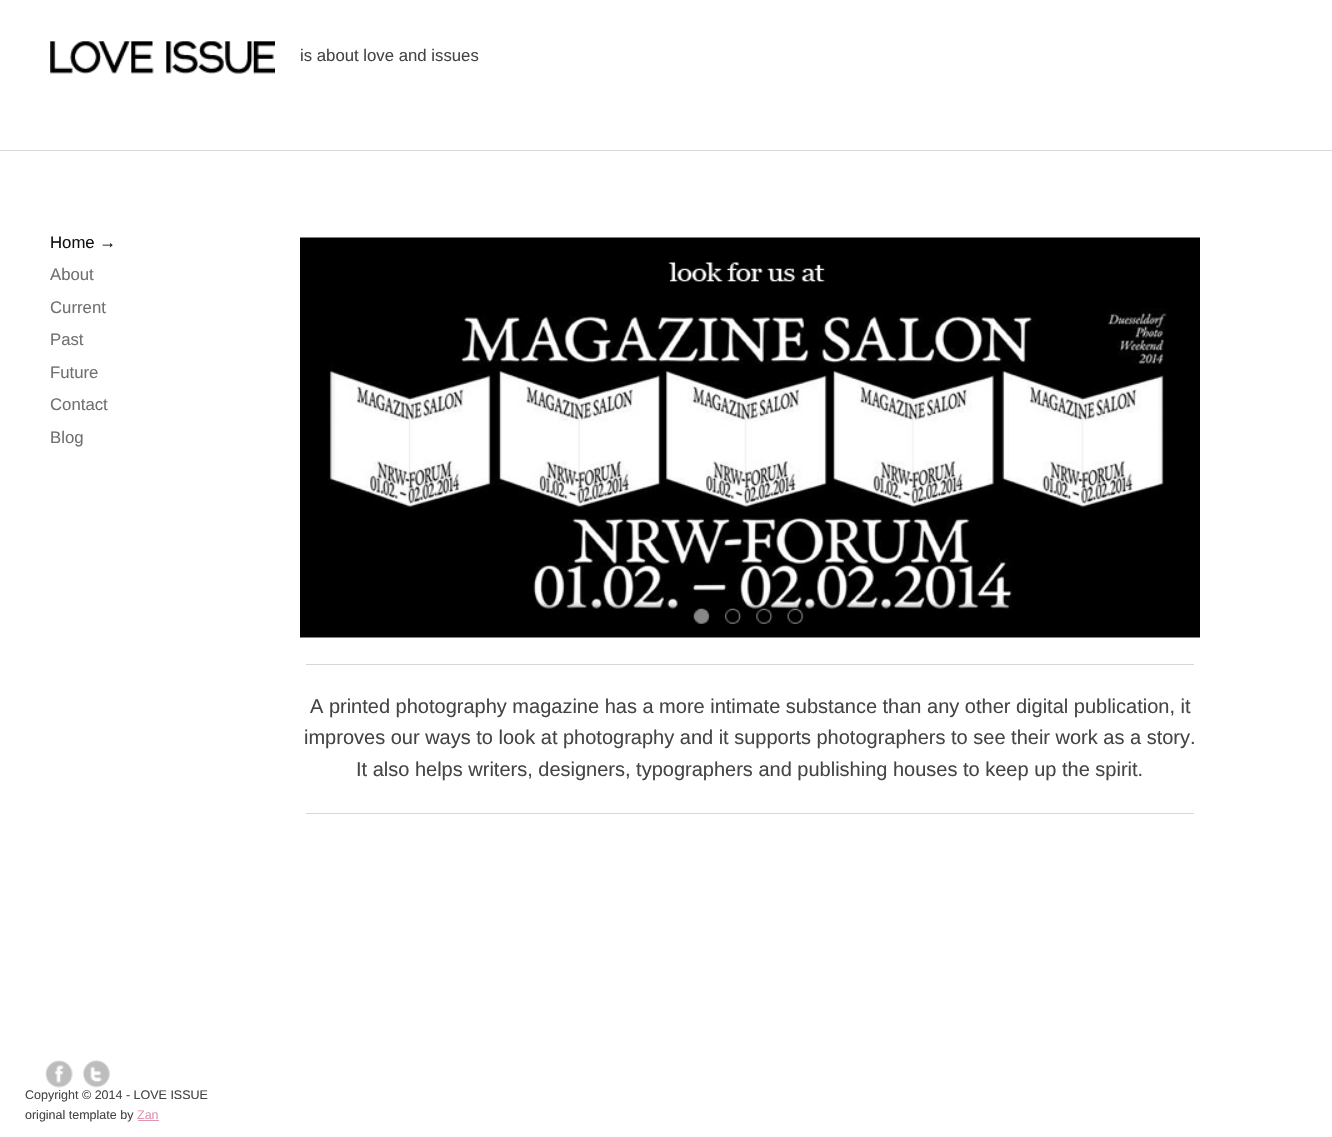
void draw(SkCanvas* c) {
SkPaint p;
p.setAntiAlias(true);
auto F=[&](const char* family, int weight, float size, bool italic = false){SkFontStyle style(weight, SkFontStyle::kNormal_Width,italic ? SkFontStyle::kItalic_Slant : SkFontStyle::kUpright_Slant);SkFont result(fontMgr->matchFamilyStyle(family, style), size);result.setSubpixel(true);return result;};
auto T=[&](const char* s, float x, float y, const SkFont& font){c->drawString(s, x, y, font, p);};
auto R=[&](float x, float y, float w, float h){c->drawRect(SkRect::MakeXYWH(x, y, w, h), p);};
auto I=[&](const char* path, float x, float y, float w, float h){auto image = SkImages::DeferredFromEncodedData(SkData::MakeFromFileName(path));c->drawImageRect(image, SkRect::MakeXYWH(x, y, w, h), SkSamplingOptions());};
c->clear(0xffffffff);
p.setColor(0xffd8d8d8);
R(0,150,1332,1);
I("1.png",50,41,225,33);
auto f1 = F("Liberation Sans",400,16.75);
p.setColor(0xff454544);
T("is about love and issues",300,61,f1);
p.setColor(0xff121212);
T("Home →",50,248,f1);
p.setColor(0xff707070);
T("About",50,280,f1);
T("Current",50,313,f1);
T("Past",50,345,f1);
T("Future",50,378,f1);
T("Contact",50,410,f1);
T("Blog",50,443,f1);
I("2.png",45,1060,28,28);
I("3.png",82,1060,28,28);
auto f2 = F("Liberation Sans",400,12.5);
p.setColor(0xff454544);
T("Copyright © 2014 - LOVE ISSUE",25,1099,f2);
T("original template by",25,1119,f2);
p.setColor(0xffe095b4);
T("Zan",137,1119,f2);
R(138,1120,21,1);
I("4.png",300,237,900,401);
I("5.png",693,608,17,17);
I("6.png",724,608,18,17);
I("7.png",756,608,17,17);
I("8.png",787,608,17,17);
p.setColor(0xffd6d6d6);
R(306,664,888,1);
auto f3 = F("Liberation Sans",400,20);
p.setColor(0xff454544);
T("A printed photography magazine has a more intimate substance than any other digital publication, it",310,713,f3);
T("improves our ways to look at photography and it supports photographers to see their work as a story.",304,744,f3);
T("It also helps writers, designers, typographers and publishing houses to keep up the spirit.",356,776,f3);
p.setColor(0xffd6d6d6);
R(306,813,888,1);
}
